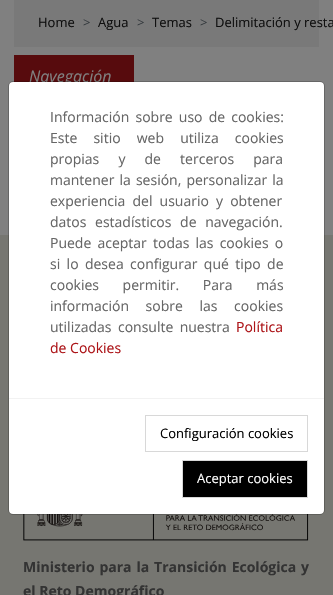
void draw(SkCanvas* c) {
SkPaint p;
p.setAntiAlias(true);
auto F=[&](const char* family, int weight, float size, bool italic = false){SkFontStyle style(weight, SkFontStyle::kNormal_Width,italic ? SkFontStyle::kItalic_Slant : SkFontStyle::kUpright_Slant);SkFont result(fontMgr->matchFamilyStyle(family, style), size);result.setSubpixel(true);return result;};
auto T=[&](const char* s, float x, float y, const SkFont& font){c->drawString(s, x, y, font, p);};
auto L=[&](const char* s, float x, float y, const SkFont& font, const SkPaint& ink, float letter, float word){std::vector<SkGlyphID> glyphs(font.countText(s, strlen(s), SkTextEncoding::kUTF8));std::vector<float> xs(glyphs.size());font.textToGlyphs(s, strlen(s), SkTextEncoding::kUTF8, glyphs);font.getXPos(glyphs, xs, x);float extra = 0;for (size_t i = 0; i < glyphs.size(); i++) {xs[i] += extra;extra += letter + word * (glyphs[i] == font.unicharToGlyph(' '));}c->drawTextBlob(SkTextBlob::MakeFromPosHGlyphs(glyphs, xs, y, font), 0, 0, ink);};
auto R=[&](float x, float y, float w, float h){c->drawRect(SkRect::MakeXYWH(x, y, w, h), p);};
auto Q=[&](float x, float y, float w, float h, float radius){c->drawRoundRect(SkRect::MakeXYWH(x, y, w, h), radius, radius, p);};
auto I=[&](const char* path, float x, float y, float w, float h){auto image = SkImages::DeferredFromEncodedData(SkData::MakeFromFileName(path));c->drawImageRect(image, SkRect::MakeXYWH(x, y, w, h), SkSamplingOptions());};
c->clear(0xff808080);
p.setColor(0xff797979);
R(14,0,305,47);
auto f1 = F("Open Sans",400,13);
p.setColor(0xff0f0f0f);
T("Home",38,27,f1);
p.setColor(0xff363b3f);
T(">",83,27,f1);
p.setColor(0xff0f0f0f);
T("Agua",98,27,f1);
p.setColor(0xff363b3f);
T(">",137,27,f1);
p.setColor(0xff0f0f0f);
T("Temas",152,27,f1);
p.setColor(0xff363b3f);
T(">",200,27,f1);
p.setColor(0xff0f0f0f);
T("Delimitación y resta",215,27,f1);
p.setColor(0xff570b0d);
R(14,55,120,27);
auto f2 = F("Open Sans",400,16,true);
p.setColor(0xff808080);
T("Navegación",29,82,f2);
p.setColor(0xff767671);
R(0,235,333,360);
p.setColor(0xffffffff);
Q(9,82,315,432,4);
I("1.png",23,514,286,27);
p.setStroke(true);
p.setStrokeWidth(1);
p.setColor(0x33000000);
c->drawRoundRect(SkRect::MakeXYWH(8.5,81.5,316,433),4.5,4.5,p);
auto f3 = F("Open Sans",400,14);
p.setStroke(false);
p.setColor(0xff666666);
L("Información sobre uso de cookies:",50,122,f3,p,0,2.5);
L("Este sitio web utiliza cookies",50,143,f3,p,0,12.5);
L("propias y de terceros para",50,164,f3,p,0,15.5);
L("mantener la sesión, personalizar la",50,185,f3,p,0,1.5);
L("experiencia del usuario y obtener",50,206,f3,p,0,3.5);
L("datos estadísticos de navegación.",50,227,f3,p,0,5);
L("Puede aceptar todas las cookies o",50,248,f3,p,0,2.5);
L("si lo desea configurar qué tipo de",50,269,f3,p,0,2.75);
L("cookies permitir. Para más",50,290,f3,p,0,20);
L("información sobre las cookies",50,311,f3,p,0,13);
L("utilizadas consulte nuestra",50,332,f3,p,0,2.75);
p.setColor(0xffad1519);
T("Política",236,332,f3);
T("de Cookies",50,353,f3);
p.setColor(0xfff2f2f2);
R(9,398,315,1);
p.setStroke(true);
p.setColor(0xffd8d8d8);
c->drawRect(SkRect::MakeXYWH(145.5,415.5,162,36),p);
p.setStroke(false);
p.setColor(0xff000000);
T("Configuración cookies",160,438,f1);
c->drawRect(SkRect::MakeXYWH(182.5,460.5,125,37),p);
p.setStroke(true);
p.setColor(0xffd8d8d8);
c->drawRect(SkRect::MakeXYWH(182.5,460.5,125,37),p);
p.setStroke(false);
p.setColor(0xffffffff);
T("Aceptar cookies",197,483,f1);
auto f4 = F("Open Sans",700,14);
p.setColor(0xff333333);
L("Ministerio para la Transición Ecológica y",23,572,f4,p,0,1.25);
T("el Reto Demográfico",23,596,f4);
}
